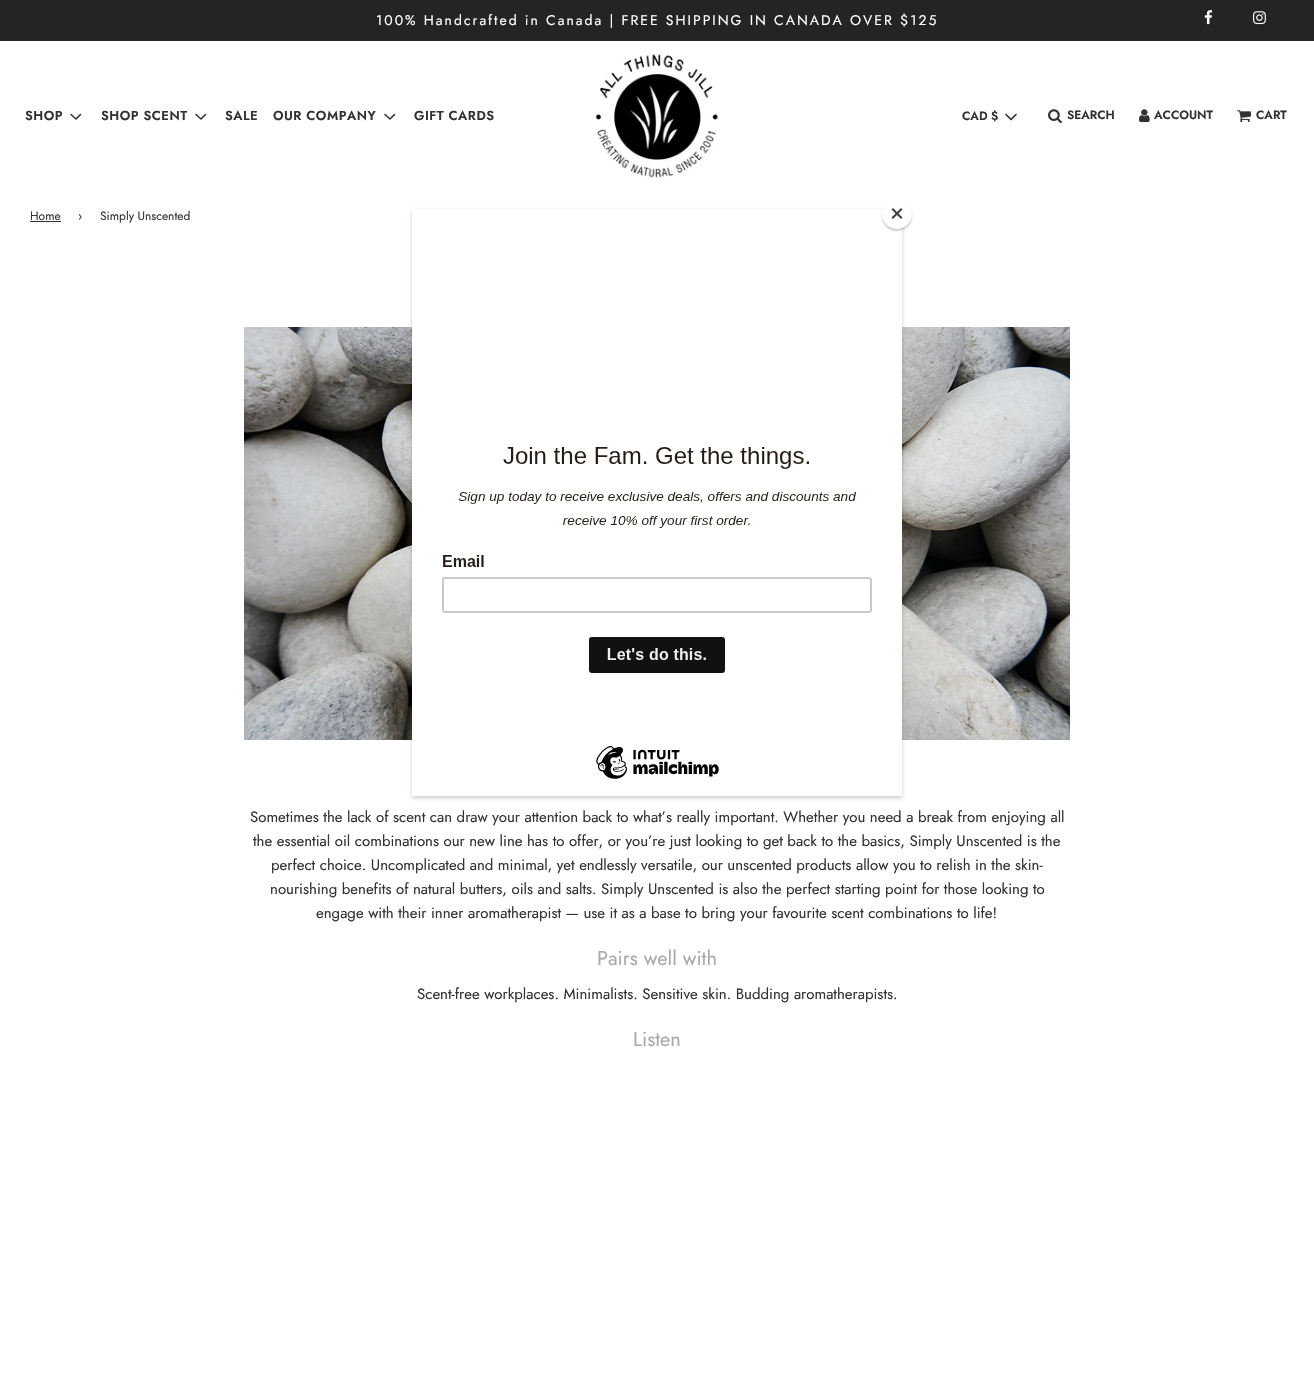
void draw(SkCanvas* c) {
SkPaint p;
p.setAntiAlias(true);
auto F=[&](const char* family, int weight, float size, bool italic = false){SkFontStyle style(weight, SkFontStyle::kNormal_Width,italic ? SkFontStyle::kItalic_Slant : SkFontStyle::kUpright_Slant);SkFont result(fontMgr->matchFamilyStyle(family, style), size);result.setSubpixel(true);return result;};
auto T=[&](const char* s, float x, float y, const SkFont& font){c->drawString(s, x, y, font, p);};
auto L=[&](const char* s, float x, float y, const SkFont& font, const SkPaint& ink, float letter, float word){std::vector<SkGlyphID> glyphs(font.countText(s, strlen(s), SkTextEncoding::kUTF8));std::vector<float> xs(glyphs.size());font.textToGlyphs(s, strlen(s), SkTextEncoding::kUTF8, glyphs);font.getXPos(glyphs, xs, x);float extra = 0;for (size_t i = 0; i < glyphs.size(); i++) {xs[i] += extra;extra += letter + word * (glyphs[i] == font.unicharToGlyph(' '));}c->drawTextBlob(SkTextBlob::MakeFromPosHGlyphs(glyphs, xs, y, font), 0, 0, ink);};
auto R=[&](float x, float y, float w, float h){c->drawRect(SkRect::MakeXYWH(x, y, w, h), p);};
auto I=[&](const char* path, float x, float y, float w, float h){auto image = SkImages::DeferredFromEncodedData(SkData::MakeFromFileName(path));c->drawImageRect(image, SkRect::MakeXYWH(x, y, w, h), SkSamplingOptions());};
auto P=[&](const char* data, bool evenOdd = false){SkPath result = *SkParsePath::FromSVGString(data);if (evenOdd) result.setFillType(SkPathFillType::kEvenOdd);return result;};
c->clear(0xffffffff);
p.setColor(0xff242424);
R(0,0,1314,41);
auto f1 = F("Jost",400,14);
p.setColor(0xffffffff);
L("100% Handcrafted in Canada | FREE SHIPPING IN CANADA OVER $125",376,25,f1,p,2,0);
I("1.png",1204,10,9,15);
I("2.png",1253,11,13,14);
auto f2 = F("Jost",600,13);
p.setColor(0xff333333);
L("SHOP",25,120,f2,p,.5,0);
p.setStroke(true);
p.setStrokeWidth(1.6);
p.setStrokeCap(SkPaint::kRound_Cap);
p.setStrokeJoin(SkPaint::kRound_Join);
c->drawPath(P("M71 114.5l5 4.5l4.5-4.5"),p);
p.setStroke(false);
L("SHOP SCENT",101,120,f2,p,.5,0);
p.setStroke(true);
c->drawPath(P("M196 114.5l5 4.5l4.5-4.5"),p);
p.setStroke(false);
L("SALE",225,120,f2,p,.5,0);
L("OUR COMPANY",273,120,f2,p,.5,0);
p.setStroke(true);
c->drawPath(P("M385 114.5l5 4.5l4.5-4.5"),p);
p.setStroke(false);
L("GIFT CARDS",414,120,f2,p,.5,0);
I("3.png",595,54,123,125);
auto f3 = F("Jost",600,12);
T("CAD $",962,120,f3);
p.setStroke(true);
p.setStrokeWidth(1.7);
c->drawPath(P("M1006 114.5l5 5l5-5"),p);
I("4.png",1048,109,14,15);
p.setStroke(false);
T("SEARCH",1067,119,f3);
I("5.png",1139,109,11,14);
T("ACCOUNT",1154,119,f3);
I("6.png",1237,110,14,13);
T("CART",1256,119,f3);
auto f4 = F("Jost",400,12);
T("Home",30,220,f4);
R(30,221,31,1);
T("›",78,220,f4);
T("Simply Unscented",100,220,f4);
I("7.png",244,327,826,413);
auto f5 = F("Jost",400,15);
T("Sometimes the lack of scent can draw your attention back to what’s really important. Whether you need a break from enjoying all",250,822,f5);
T("the essential oil combinations our new line has to offer, or you’re just looking to get back to the basics, Simply Unscented is the",253,846,f5);
T("perfect choice. Uncomplicated and minimal, yet endlessly versatile, our unscented products allow you to relish in the skin-",271,870,f5);
T("nourishing benefits of natural butters, oils and salts. Simply Unscented is also the perfect starting point for those looking to",270,894,f5);
T("engage with their inner aromatherapist — use it as a base to bring your favourite scent combinations to life!",316,918,f5);
auto f6 = F("Jost",400,20);
p.setColor(0xffa9a9a9);
T("Pairs well with",597,965,f6);
p.setColor(0xff333333);
T("Scent-free workplaces. Minimalists. Sensitive skin. Budding aromatherapists.",417,999,f5);
p.setColor(0xffa9a9a9);
T("Listen",633,1046,f6);
p.setColor(0x33000000);
p.setMaskFilter(SkMaskFilter::MakeBlur(kNormal_SkBlurStyle, 1));
c->drawRoundRect(SkRect::MakeXYWH(882,201,30,30),15,15,p);
p.setMaskFilter(nullptr);
c->save();
c->clipPath(P("M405 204h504v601h-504zm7 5h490v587h-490z",true),true);
p.setMaskFilter(SkMaskFilter::MakeBlur(kNormal_SkBlurStyle, 2));
c->drawRect(SkRect::MakeXYWH(412,211,490,587),p);
p.setMaskFilter(nullptr);
c->restore();
p.setColor(0xffffffff);
c->drawCircle(897,214,15,p);
p.setColor(0xff414141);
c->drawPath(P("M901 208l1.5 1.5l-9.5 9.5l-1.5-1.5z"),p);
c->drawPath(P("M891.5 209.5l1.5-1.5l9.5 9.5l-1.5 1.5z"),p);
I("8.png",412,279,490,509);
}
